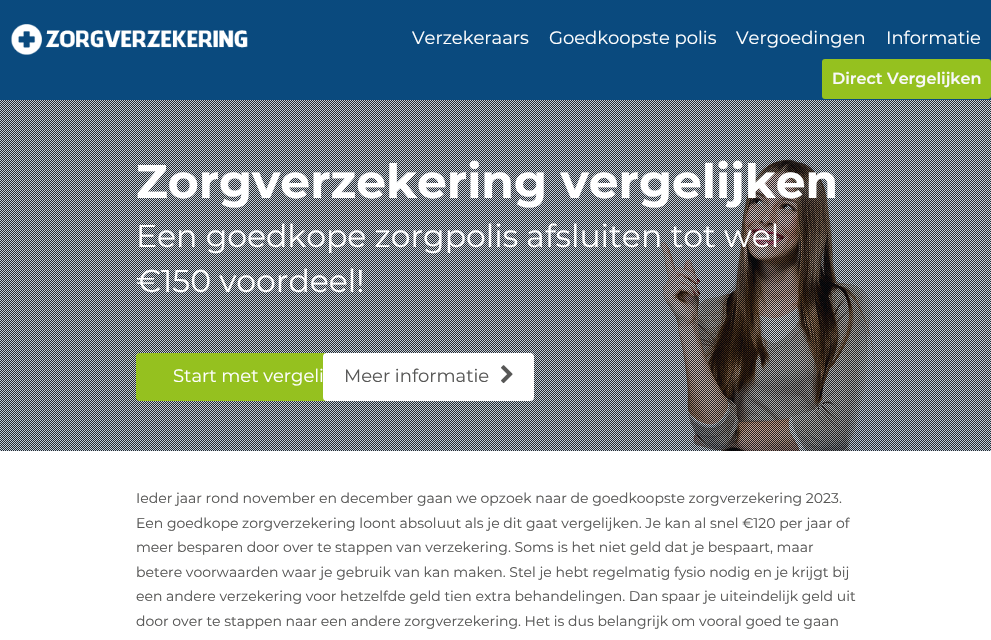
void draw(SkCanvas* c) {
SkPaint p;
p.setAntiAlias(true);
auto F=[&](const char* family, int weight, float size, bool italic = false){SkFontStyle style(weight, SkFontStyle::kNormal_Width,italic ? SkFontStyle::kItalic_Slant : SkFontStyle::kUpright_Slant);SkFont result(fontMgr->matchFamilyStyle(family, style), size);result.setSubpixel(true);return result;};
auto T=[&](const char* s, float x, float y, const SkFont& font){c->drawString(s, x, y, font, p);};
auto R=[&](float x, float y, float w, float h){c->drawRect(SkRect::MakeXYWH(x, y, w, h), p);};
auto Q=[&](float x, float y, float w, float h, float radius){c->drawRoundRect(SkRect::MakeXYWH(x, y, w, h), radius, radius, p);};
auto I=[&](const char* path, float x, float y, float w, float h){auto image = SkImages::DeferredFromEncodedData(SkData::MakeFromFileName(path));c->drawImageRect(image, SkRect::MakeXYWH(x, y, w, h), SkSamplingOptions());};
c->clear(0xffffffff);
p.setColor(0xff0a4a7e);
R(0,0,991,100);
I("1.png",11,24,237,31);
auto f1 = F("Montserrat",400,18);
p.setColor(0xffffffff);
T("Verzekeraars",412,44,f1);
T("Goedkoopste polis",549,44,f1);
T("Vergoedingen",736,44,f1);
T("Informatie",886,44,f1);
p.setColor(0xff95c11f);
Q(822,59,169,40,3);
auto f2 = F("Montserrat",600,16);
p.setColor(0xfff8f8f8);
T("Direct Vergelijken",832,84,f2);
I("2.png",0,100,991,351);
I("3.png",0,100,991,351);
auto f3 = F("Montserrat",700,47.25);
p.setColor(0xffffffff);
T("Zorgverzekering vergelijken",136,198,f3);
auto f4 = F("Montserrat",400,31.5);
T("Een goedkope zorgpolis afsluiten tot wel",136,247,f4);
T("€150 voordeel!",136,292,f4);
p.setColor(0xff95c11f);
Q(136,353,263,48,4);
p.setColor(0xffffffff);
T("Start met vergeli",173,382,f1);
Q(323,353,211,48,4);
p.setColor(0xff575756);
T("Meer informatie",344,382,f1);
I("4.png",501,365,12,19);
auto f5 = F("Montserrat",400,14);
T("Ieder jaar rond november en december gaan we opzoek naar de goedkoopste zorgverzekering 2023.",136,503,f5);
T("Een goedkope zorgverzekering loont absoluut als je dit gaat vergelijken. Je kan al snel €120 per jaar of",136,528,f5);
T("meer besparen door over te stappen van verzekering. Soms is het niet geld dat je bespaart, maar",136,552,f5);
T("betere voorwaarden waar je gebruik van kan maken. Stel je hebt regelmatig fysio nodig en je krijgt bij",136,577,f5);
T("een andere verzekering voor hetzelfde geld tien extra behandelingen. Dan spaar je uiteindelijk geld uit",136,601,f5);
T("door over te stappen naar een andere zorgverzekering. Het is dus belangrijk om vooral goed te gaan",136,626,f5);
}
